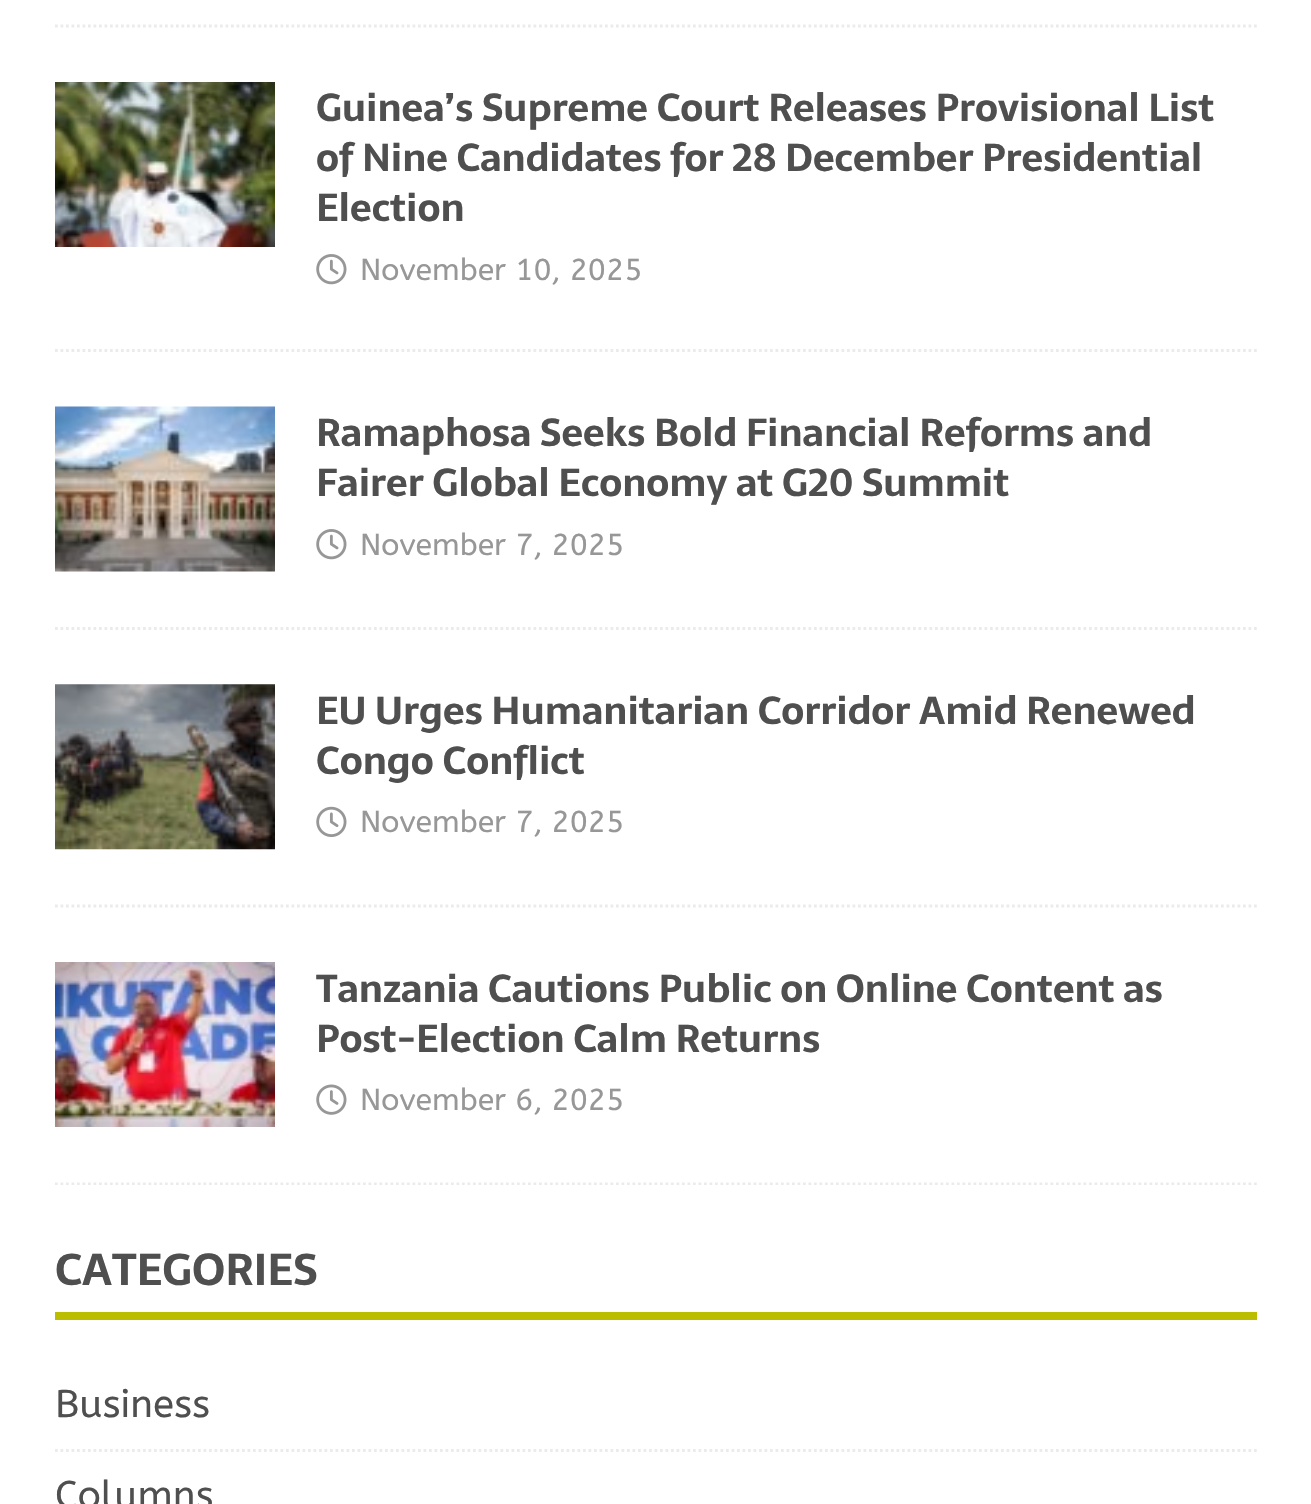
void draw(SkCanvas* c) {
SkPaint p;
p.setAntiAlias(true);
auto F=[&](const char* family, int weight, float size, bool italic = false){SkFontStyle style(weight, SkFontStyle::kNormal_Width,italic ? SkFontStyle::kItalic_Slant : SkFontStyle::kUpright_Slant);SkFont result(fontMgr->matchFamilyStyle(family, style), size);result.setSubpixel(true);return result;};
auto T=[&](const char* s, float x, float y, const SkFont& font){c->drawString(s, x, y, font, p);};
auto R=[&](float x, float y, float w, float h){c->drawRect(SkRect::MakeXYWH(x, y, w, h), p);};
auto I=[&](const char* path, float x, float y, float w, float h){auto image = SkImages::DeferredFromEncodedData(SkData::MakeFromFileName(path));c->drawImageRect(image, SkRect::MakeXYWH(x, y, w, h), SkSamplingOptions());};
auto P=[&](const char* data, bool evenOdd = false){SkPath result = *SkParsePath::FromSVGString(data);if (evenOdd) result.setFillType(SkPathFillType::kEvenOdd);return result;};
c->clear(0xffffffff);
p.setStroke(true);
p.setStrokeWidth(2.8);
p.setColor(0xffebebeb);
p.setPathEffect(SkDashPathEffect::Make({{2.75f,2.75f}}, 0));
c->drawPath(P("M55 26h1202"),p);
p.setPathEffect(nullptr);
p.setPathEffect(SkDashPathEffect::Make({{2.75f,2.75f}}, 0));
c->drawPath(P("M55 350.5h1202"),p);
p.setPathEffect(nullptr);
I("1.png",55,82,220,165);
auto f1 = F("Sarala",700,38.5);
p.setStroke(false);
p.setColor(0xff4f4f4f);
T("Guinea’s Supreme Court Releases Provisional List",316,121,f1);
T("of Nine Candidates for 28 December Presidential",316,171,f1);
T("Election",316,221,f1);
I("2.png",316,254,31,31);
auto f2 = F("ABeeZee",400,30.25);
p.setColor(0xff979797);
T("November 10, 2025",360,280,f2);
p.setStroke(true);
p.setColor(0xffebebeb);
p.setPathEffect(SkDashPathEffect::Make({{2.75f,2.75f}}, 0));
c->drawPath(P("M55 628.5h1202"),p);
p.setPathEffect(nullptr);
I("3.png",55,406,220,166);
p.setStroke(false);
p.setColor(0xff4f4f4f);
T("Ramaphosa Seeks Bold Financial Reforms and",316,446,f1);
T("Fairer Global Economy at G20 Summit",316,496,f1);
I("2.png",316,529,31,31);
p.setColor(0xff979797);
T("November 7, 2025",360,555,f2);
p.setStroke(true);
p.setColor(0xffebebeb);
p.setPathEffect(SkDashPathEffect::Make({{2.75f,2.75f}}, 0));
c->drawPath(P("M55 906h1202"),p);
p.setPathEffect(nullptr);
I("4.png",55,684,220,166);
p.setStroke(false);
p.setColor(0xff4f4f4f);
T("EU Urges Humanitarian Corridor Amid Renewed",316,724,f1);
T("Congo Conflict",316,774,f1);
I("5.png",316,806,31,31);
p.setColor(0xff979797);
T("November 7, 2025",360,832,f2);
c->save();
c->clipRect(SkRect::MakeXYWH(55,0,1202,1185));
p.setStroke(true);
p.setColor(0xffebebeb);
p.setPathEffect(SkDashPathEffect::Make({{2.75f,2.75f}}, 0));
c->drawPath(P("M55 1184h1202"),p);
p.setPathEffect(nullptr);
c->restore();
I("6.png",55,962,220,165);
p.setStroke(false);
p.setColor(0xff4f4f4f);
T("Tanzania Cautions Public on Online Content as",316,1002,f1);
T("Post-Election Calm Returns",316,1052,f1);
I("7.png",316,1084,31,31);
p.setColor(0xff979797);
T("November 6, 2025",360,1110,f2);
p.setColor(0xffbbbd00);
R(55,1312,1202,8);
auto f3 = F("Sarala",700,44);
p.setColor(0xff4f4f4f);
T("CATEGORIES",55,1285,f3);
p.setStroke(true);
p.setColor(0xffebebeb);
p.setPathEffect(SkDashPathEffect::Make({{2.75f,2.75f}}, 0));
c->drawPath(P("M55 1450.5h1202"),p);
p.setPathEffect(nullptr);
auto f4 = F("ABeeZee",400,38.5);
p.setStroke(false);
p.setColor(0xff4f4f4f);
T("Business",55,1417,f4);
T("Columns",55,1508,f4);
}
